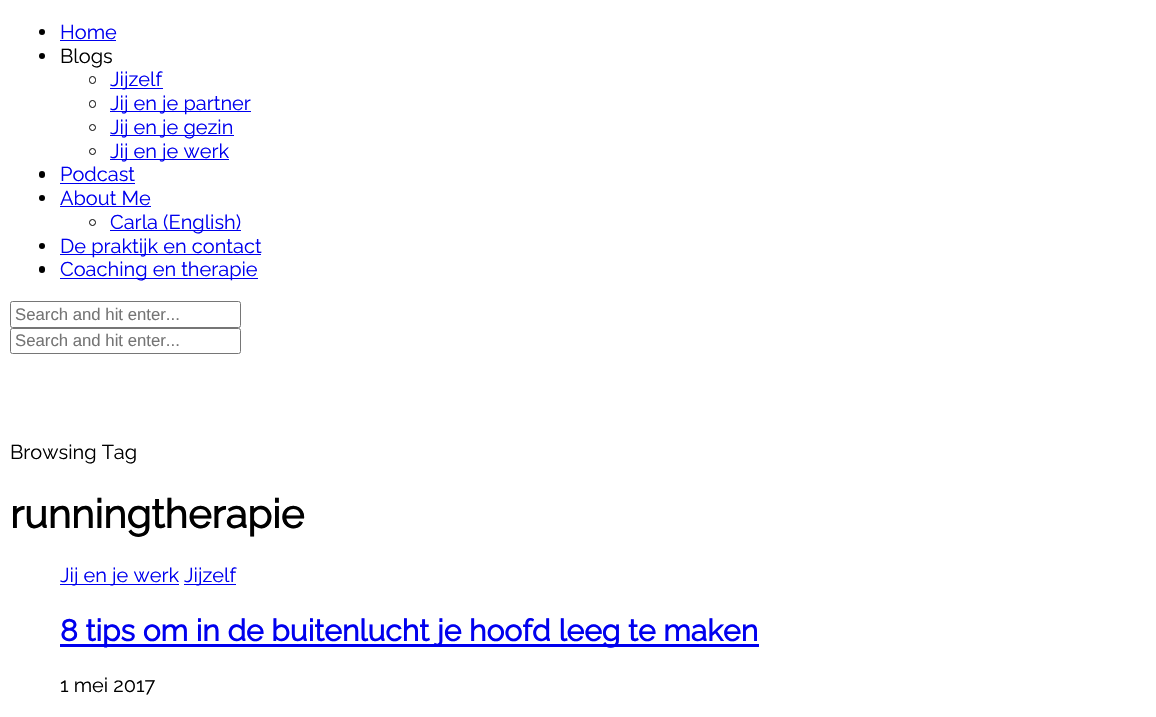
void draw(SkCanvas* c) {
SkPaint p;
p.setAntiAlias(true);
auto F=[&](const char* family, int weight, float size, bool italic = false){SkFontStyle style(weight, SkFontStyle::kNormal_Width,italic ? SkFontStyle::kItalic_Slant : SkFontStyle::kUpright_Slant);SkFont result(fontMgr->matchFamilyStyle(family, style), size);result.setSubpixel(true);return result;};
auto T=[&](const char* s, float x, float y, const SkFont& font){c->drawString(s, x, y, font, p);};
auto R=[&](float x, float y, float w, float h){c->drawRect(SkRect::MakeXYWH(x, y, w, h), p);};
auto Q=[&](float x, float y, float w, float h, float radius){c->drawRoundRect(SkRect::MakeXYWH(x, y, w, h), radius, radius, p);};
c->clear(0xffffffff);
p.setColor(0xff000000);
c->drawCircle(42,32,3,p);
auto f1 = F("Raleway",100,20);
p.setColor(0xff0000ee);
T("Home",60,39,f1);
R(60,40,56,1);
p.setColor(0xff000000);
c->drawCircle(42,56,3,p);
T("Blogs",60,63,f1);
p.setStroke(true);
p.setStrokeWidth(1);
c->drawRoundRect(SkRect::MakeXYWH(89.5,76.5,6,7),3,3,p);
p.setStroke(false);
p.setColor(0xff0000ee);
R(110,88,53,1);
T("Jijzelf",110,86,f1);
p.setStroke(true);
p.setColor(0xff000000);
c->drawRoundRect(SkRect::MakeXYWH(89.5,100.5,6,7),3,3,p);
p.setStroke(false);
p.setColor(0xff0000ee);
R(110,111,141,1);
T("Jij en je partner",110,110,f1);
p.setStroke(true);
p.setColor(0xff000000);
c->drawCircle(92.5,127.5,3,p);
p.setStroke(false);
p.setColor(0xff0000ee);
R(110,135,124,1);
T("Jij en je gezin",110,134,f1);
p.setStroke(true);
p.setColor(0xff000000);
c->drawCircle(92.5,151.5,3,p);
p.setStroke(false);
p.setColor(0xff0000ee);
R(110,159,119,1);
T("Jij en je werk",110,158,f1);
p.setColor(0xff000000);
Q(39,171,6,7,3);
p.setColor(0xff0000ee);
T("Podcast",60,181,f1);
R(60,183,75,1);
p.setColor(0xff000000);
c->drawCircle(42,198,3,p);
p.setColor(0xff0000ee);
T("About Me",60,205,f1);
R(60,206,91,1);
p.setStroke(true);
p.setColor(0xff000000);
c->drawCircle(92.5,222.5,3,p);
p.setStroke(false);
p.setColor(0xff0000ee);
R(110,230,131,1);
T("Carla (English)",110,229,f1);
p.setColor(0xff000000);
c->drawCircle(42,246,3,p);
p.setColor(0xff0000ee);
R(60,254,201,1);
T("De praktijk en contact",60,253,f1);
p.setColor(0xff000000);
Q(39,266,6,7,3);
p.setColor(0xff0000ee);
R(60,278,198,1);
T("Coaching en therapie",60,276,f1);
p.setStroke(true);
p.setColor(0xff767676);
c->drawRoundRect(SkRect::MakeXYWH(10.5,301.5,230,26),2,2,p);
auto f2 = F("Liberation Sans",400,16.75);
p.setStroke(false);
p.setColor(0xff757575);
T("Search and hit enter...",15,320,f2);
p.setStroke(true);
p.setColor(0xff767676);
c->drawRoundRect(SkRect::MakeXYWH(10.5,328.5,230,25),2,2,p);
p.setStroke(false);
p.setColor(0xff757575);
T("Search and hit enter...",15,346,f2);
p.setColor(0xff000000);
T("Browsing Tag",10,459,f1);
auto f3 = F("Raleway",700,40);
T("runningtherapie",10,528,f3);
p.setColor(0xff0000ee);
R(60,584,119,1);
T("Jij en je werk",60,582,f1);
R(184,584,52,1);
T("Jijzelf",184,582,f1);
R(60,644,699,3);
auto f4 = F("Raleway",700,30);
T("8 tips om in de buitenlucht je hoofd leeg te maken",60,641,f4);
p.setColor(0xff000000);
T("1 mei 2017",60,692,f1);
}
